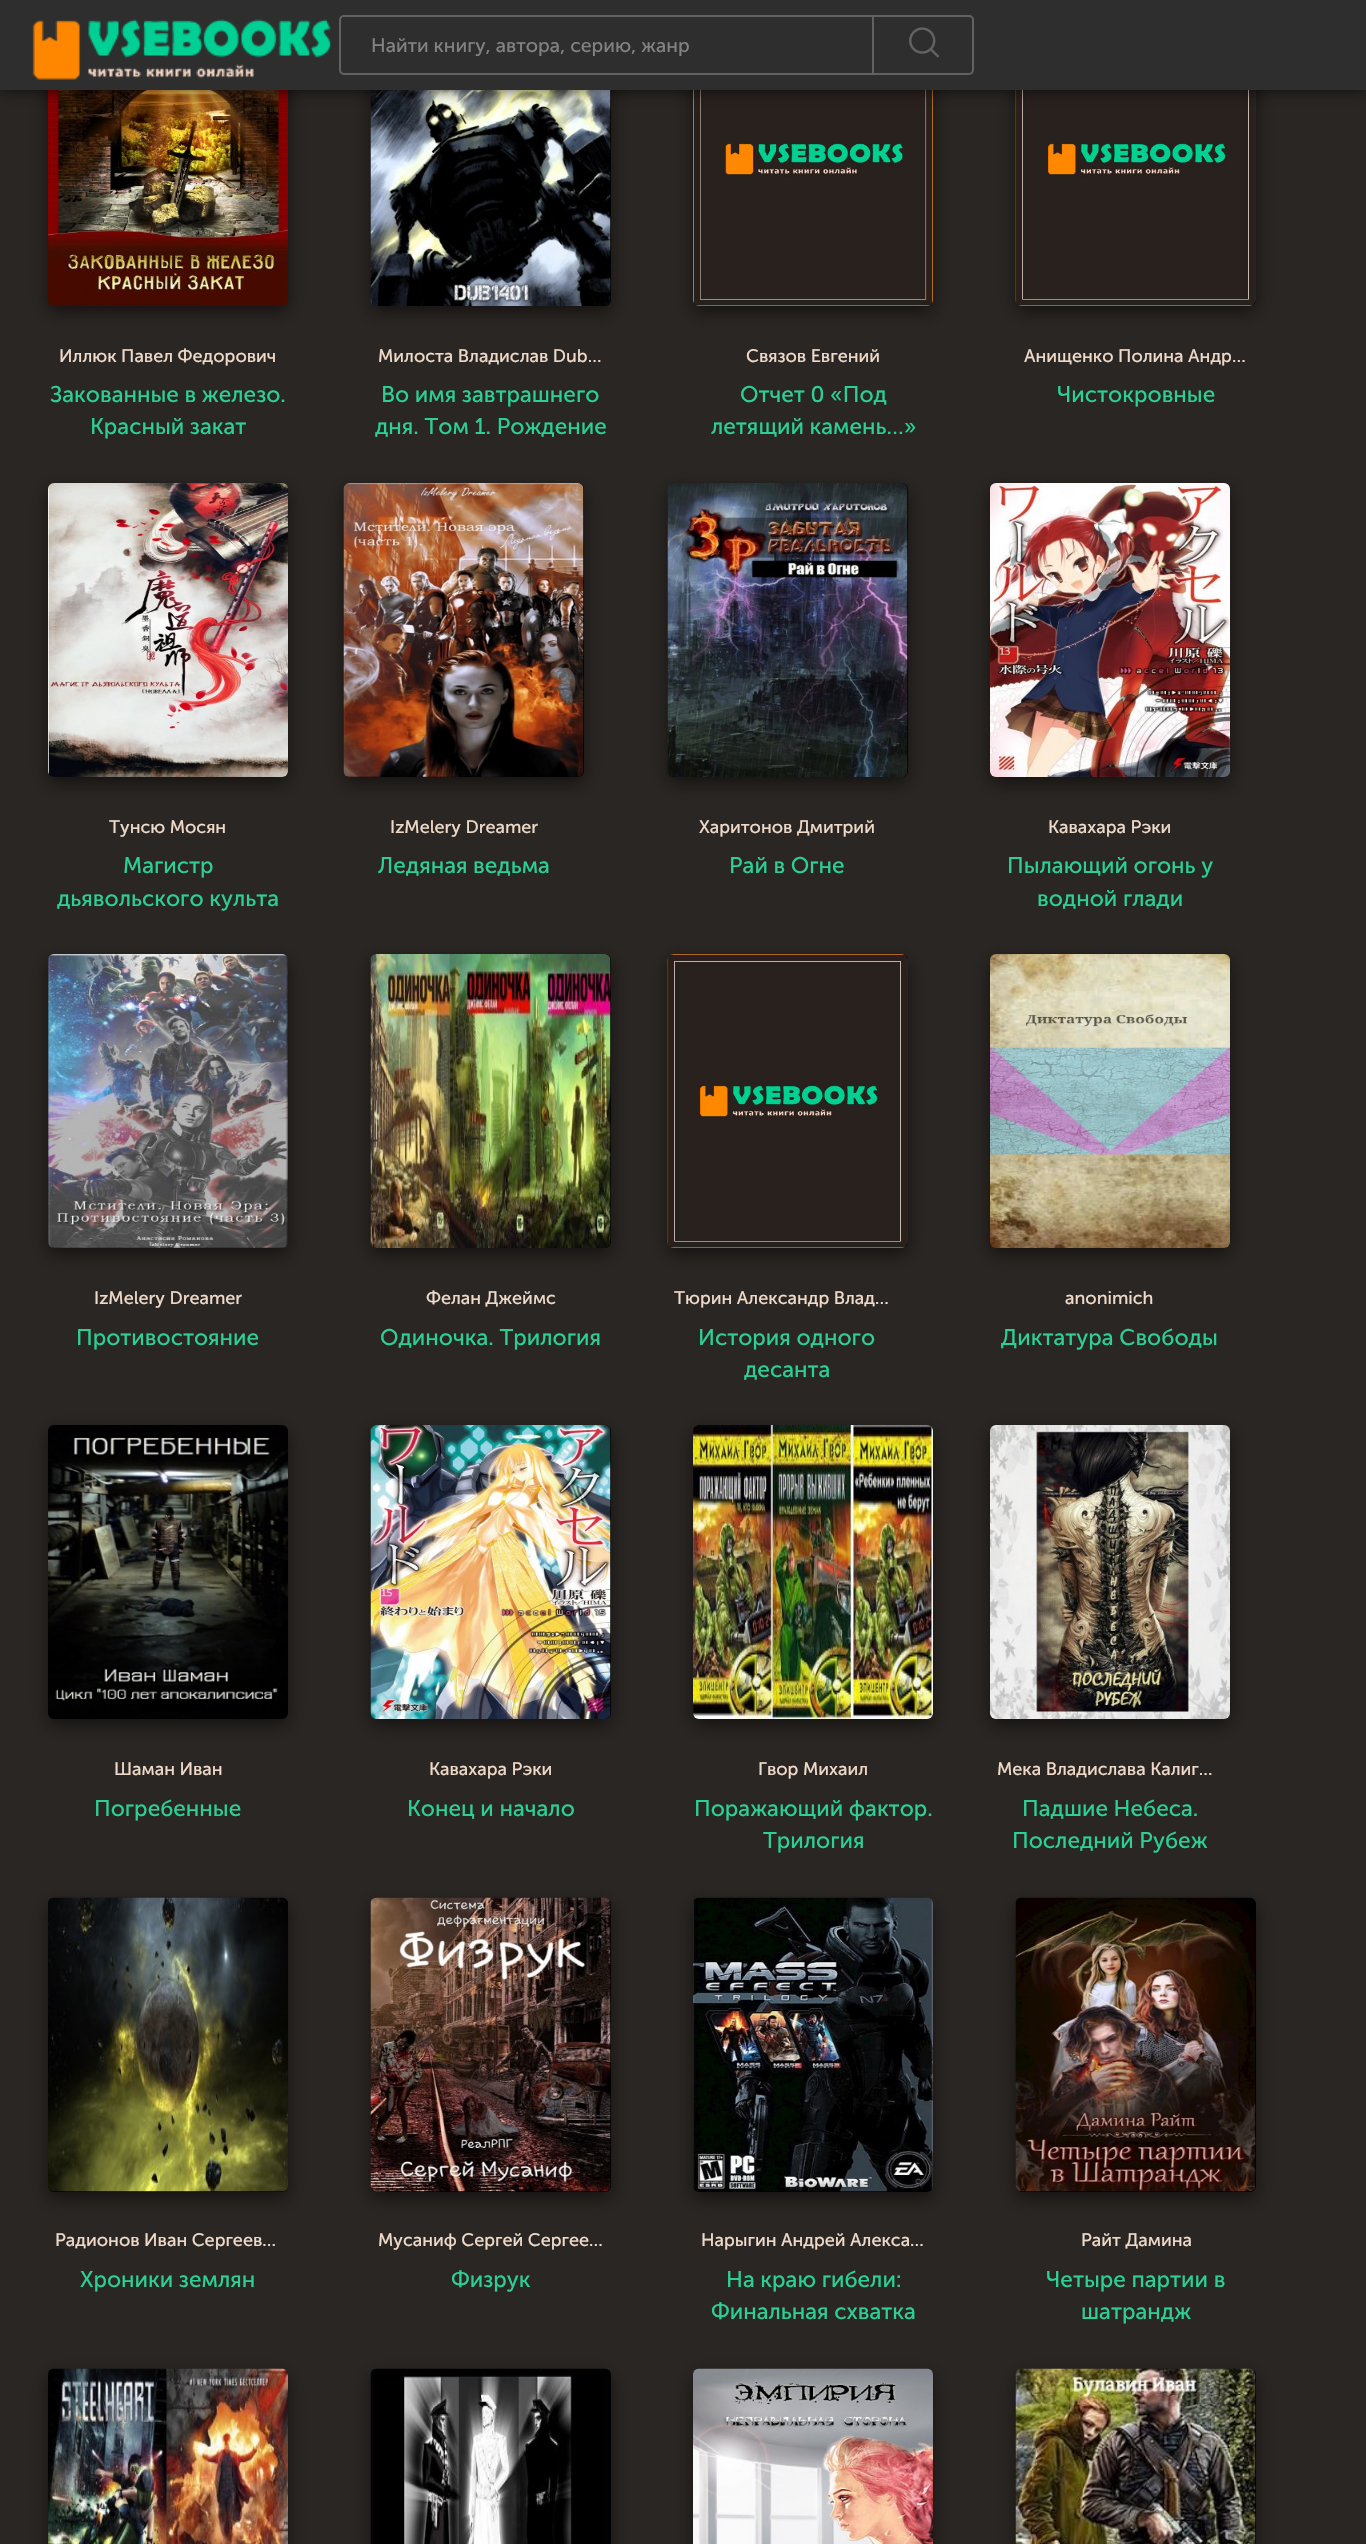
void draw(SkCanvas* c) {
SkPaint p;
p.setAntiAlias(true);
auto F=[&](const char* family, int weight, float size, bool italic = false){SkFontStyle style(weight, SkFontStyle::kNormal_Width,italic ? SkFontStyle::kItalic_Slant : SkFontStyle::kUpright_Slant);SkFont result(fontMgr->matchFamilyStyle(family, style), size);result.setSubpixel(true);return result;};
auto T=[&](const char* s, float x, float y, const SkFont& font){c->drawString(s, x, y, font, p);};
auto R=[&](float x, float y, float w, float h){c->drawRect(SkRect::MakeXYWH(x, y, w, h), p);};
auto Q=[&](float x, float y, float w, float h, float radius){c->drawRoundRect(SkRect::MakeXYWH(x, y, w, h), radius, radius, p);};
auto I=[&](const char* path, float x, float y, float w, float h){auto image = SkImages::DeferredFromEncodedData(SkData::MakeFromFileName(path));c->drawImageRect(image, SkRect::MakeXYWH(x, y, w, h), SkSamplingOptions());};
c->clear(0xff2a2623);
p.setColor(0x8c000000);
p.setMaskFilter(SkMaskFilter::MakeBlur(kNormal_SkBlurStyle, 9));
c->drawRoundRect(SkRect::MakeXYWH(48,18,240,294),6,6,p);
p.setMaskFilter(nullptr);
I("3.png",48,90,240,216);
p.setMaskFilter(SkMaskFilter::MakeBlur(kNormal_SkBlurStyle, 9));
c->drawRoundRect(SkRect::MakeXYWH(371,18,240,294),6,6,p);
p.setMaskFilter(nullptr);
p.setColor(0xff000000);
Q(371,12,240,294,6);
I("4.png",370,90,241,216);
p.setColor(0x8c000000);
p.setMaskFilter(SkMaskFilter::MakeBlur(kNormal_SkBlurStyle, 9));
c->drawRoundRect(SkRect::MakeXYWH(693,18,240,294),6,6,p);
p.setMaskFilter(nullptr);
I("5.png",693,90,240,216);
p.setMaskFilter(SkMaskFilter::MakeBlur(kNormal_SkBlurStyle, 9));
c->drawRoundRect(SkRect::MakeXYWH(1016,18,240,294),6,6,p);
p.setMaskFilter(nullptr);
p.setColor(0xff000000);
Q(1016,12,240,294,6);
I("6.png",1015,90,241,216);
p.setColor(0xb3000000);
p.setMaskFilter(SkMaskFilter::MakeBlur(kNormal_SkBlurStyle, 7.5));
c->drawRect(SkRect::MakeXYWH(0,0,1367,90),p);
p.setMaskFilter(nullptr);
p.setColor(0xff2e2e2e);
R(0,0,1366,90);
I("1.png",32,19,299,61);
p.setStroke(true);
p.setStrokeWidth(2);
p.setColor(0xff626262);
c->drawRoundRect(SkRect::MakeXYWH(340,16,633,58),4,4,p);
auto f1 = F("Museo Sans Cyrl",400,19.5);
p.setStroke(false);
p.setColor(0xff828282);
T("Найти книгу, автора, серию, жанр",371,52,f1);
p.setColor(0xff626262);
R(872,15,2,60);
I("2.png",909,27,30,31);
auto f2 = F("Museo Sans Cyrl",400,18);
p.setColor(0xffefdac9);
T("Иллюк Павел Федорович",59,362,f2);
auto f3 = F("Museo Sans Cyrl",400,22.5);
p.setColor(0xff2ccf95);
T("Закованные в железо.",50,402,f3);
T("Красный закат",90,434,f3);
p.setColor(0xffefdac9);
T("Милоста Владислав Dub…",378,362,f2);
p.setColor(0xff2ccf95);
T("Во имя завтрашнего",381,402,f3);
T("дня. Том 1. Рождение",375,434,f3);
p.setColor(0xffefdac9);
T("Связов Евгений",746,362,f2);
p.setColor(0xff2ccf95);
T("Отчет 0 «Под",740,402,f3);
T("летящий камень…»",711,434,f3);
p.setColor(0xffefdac9);
T("Анищенко Полина Андр…",1024,362,f2);
p.setColor(0xff2ccf95);
T("Чистокровные",1057,402,f3);
p.setColor(0x8c000000);
p.setMaskFilter(SkMaskFilter::MakeBlur(kNormal_SkBlurStyle, 9));
c->drawRoundRect(SkRect::MakeXYWH(48,489,240,294),6,6,p);
p.setMaskFilter(nullptr);
I("7.png",48,483,240,294);
p.setColor(0xffefdac9);
T("Тунсю Мосян",109,833,f2);
p.setColor(0xff2ccf95);
T("Магистр",123,873,f3);
T("дьявольского культа",57,906,f3);
p.setColor(0x8c000000);
p.setMaskFilter(SkMaskFilter::MakeBlur(kNormal_SkBlurStyle, 9));
c->drawRoundRect(SkRect::MakeXYWH(344,489,240,294),6,6,p);
p.setMaskFilter(nullptr);
p.setColor(0xff000000);
Q(344,483,240,294,6);
I("8.png",343,483,241,294);
p.setColor(0xffefdac9);
T("IzMelery Dreamer",390,833,f2);
p.setColor(0xff2ccf95);
T("Ледяная ведьма",378,873,f3);
p.setColor(0x8c000000);
p.setMaskFilter(SkMaskFilter::MakeBlur(kNormal_SkBlurStyle, 9));
c->drawRoundRect(SkRect::MakeXYWH(668,489,240,294),6,6,p);
p.setMaskFilter(nullptr);
p.setColor(0xff000000);
Q(668,483,240,294,6);
I("9.png",667,483,241,294);
p.setColor(0xffefdac9);
T("Харитонов Дмитрий",699,833,f2);
p.setColor(0xff2ccf95);
T("Рай в Огне",729,873,f3);
p.setColor(0x8c000000);
p.setMaskFilter(SkMaskFilter::MakeBlur(kNormal_SkBlurStyle, 9));
c->drawRoundRect(SkRect::MakeXYWH(990,489,240,294),6,6,p);
p.setMaskFilter(nullptr);
I("10.png",990,483,240,294);
p.setColor(0xffefdac9);
T("Кавахара Рэки",1048,833,f2);
p.setColor(0xff2ccf95);
T("Пылающий огонь у",1007,873,f3);
T("водной глади",1037,906,f3);
p.setColor(0x8c000000);
p.setMaskFilter(SkMaskFilter::MakeBlur(kNormal_SkBlurStyle, 9));
c->drawRoundRect(SkRect::MakeXYWH(48,960,240,294),6,6,p);
p.setMaskFilter(nullptr);
I("11.png",48,954,240,294);
p.setColor(0xffefdac9);
T("IzMelery Dreamer",94,1304,f2);
p.setColor(0xff2ccf95);
T("Противостояние",76,1345,f3);
p.setColor(0x8c000000);
p.setMaskFilter(SkMaskFilter::MakeBlur(kNormal_SkBlurStyle, 9));
c->drawRoundRect(SkRect::MakeXYWH(371,960,240,294),6,6,p);
p.setMaskFilter(nullptr);
p.setColor(0xff000000);
Q(371,954,240,294,6);
I("12.png",370,954,241,294);
p.setColor(0xffefdac9);
T("Фелан Джеймс",426,1304,f2);
p.setColor(0xff2ccf95);
T("Одиночка. Трилогия",380,1345,f3);
p.setColor(0x8c000000);
p.setMaskFilter(SkMaskFilter::MakeBlur(kNormal_SkBlurStyle, 9));
c->drawRoundRect(SkRect::MakeXYWH(668,960,240,294),6,6,p);
p.setMaskFilter(nullptr);
p.setColor(0xff000000);
Q(668,954,240,294,6);
I("13.png",667,954,241,294);
p.setColor(0xffefdac9);
T("Тюрин Александр Влад…",674,1304,f2);
p.setColor(0xff2ccf95);
T("История одного",698,1345,f3);
T("десанта",744,1377,f3);
p.setColor(0x8c000000);
p.setMaskFilter(SkMaskFilter::MakeBlur(kNormal_SkBlurStyle, 9));
c->drawRoundRect(SkRect::MakeXYWH(990,960,240,294),6,6,p);
p.setMaskFilter(nullptr);
I("14.png",990,954,240,294);
p.setColor(0xffefdac9);
T("anonimich",1065,1304,f2);
p.setColor(0xff2ccf95);
T("Диктатура Свободы",1001,1345,f3);
p.setColor(0x8c000000);
p.setMaskFilter(SkMaskFilter::MakeBlur(kNormal_SkBlurStyle, 9));
c->drawRoundRect(SkRect::MakeXYWH(48,1431,240,294),6,6,p);
p.setMaskFilter(nullptr);
I("15.png",48,1425,240,294);
p.setColor(0xffefdac9);
T("Шаман Иван",114,1775,f2);
p.setColor(0xff2ccf95);
T("Погребенные",94,1816,f3);
p.setColor(0x8c000000);
p.setMaskFilter(SkMaskFilter::MakeBlur(kNormal_SkBlurStyle, 9));
c->drawRoundRect(SkRect::MakeXYWH(371,1431,240,294),6,6,p);
p.setMaskFilter(nullptr);
p.setColor(0xff000000);
Q(371,1425,240,294,6);
I("16.png",370,1425,241,294);
p.setColor(0xffefdac9);
T("Кавахара Рэки",429,1775,f2);
p.setColor(0xff2ccf95);
T("Конец и начало",407,1816,f3);
p.setColor(0x8c000000);
p.setMaskFilter(SkMaskFilter::MakeBlur(kNormal_SkBlurStyle, 9));
c->drawRoundRect(SkRect::MakeXYWH(693,1431,240,294),6,6,p);
p.setMaskFilter(nullptr);
I("17.png",693,1425,240,294);
p.setColor(0xffefdac9);
T("Гвор Михаил",758,1775,f2);
p.setColor(0xff2ccf95);
T("Поражающий фактор.",694,1816,f3);
T("Трилогия",763,1848,f3);
p.setColor(0x8c000000);
p.setMaskFilter(SkMaskFilter::MakeBlur(kNormal_SkBlurStyle, 9));
c->drawRoundRect(SkRect::MakeXYWH(990,1431,240,294),6,6,p);
p.setMaskFilter(nullptr);
I("18.png",990,1425,240,294);
p.setColor(0xffefdac9);
T("Мека Владислава Калиг…",997,1775,f2);
p.setColor(0xff2ccf95);
T("Падшие Небеса.",1022,1816,f3);
T("Последний Рубеж",1012,1848,f3);
p.setColor(0x8c000000);
p.setMaskFilter(SkMaskFilter::MakeBlur(kNormal_SkBlurStyle, 9));
c->drawRoundRect(SkRect::MakeXYWH(48,1904,240,294),6,6,p);
p.setMaskFilter(nullptr);
p.setColor(0xff000000);
Q(48,1898,240,294,6);
I("19.png",48,1897,240,295);
p.setColor(0xffefdac9);
T("Радионов Иван Сергеев…",55,2246,f2);
p.setColor(0xff2ccf95);
T("Хроники землян",80,2287,f3);
p.setColor(0x8c000000);
p.setMaskFilter(SkMaskFilter::MakeBlur(kNormal_SkBlurStyle, 9));
c->drawRoundRect(SkRect::MakeXYWH(371,1904,240,294),6,6,p);
p.setMaskFilter(nullptr);
p.setColor(0xff000000);
Q(371,1898,240,294,6);
I("20.png",370,1897,241,295);
p.setColor(0xffefdac9);
T("Мусаниф Сергей Сергее…",378,2246,f2);
p.setColor(0xff2ccf95);
T("Физрук",451,2287,f3);
p.setColor(0x8c000000);
p.setMaskFilter(SkMaskFilter::MakeBlur(kNormal_SkBlurStyle, 9));
c->drawRoundRect(SkRect::MakeXYWH(693,1904,240,294),6,6,p);
p.setMaskFilter(nullptr);
p.setColor(0xff000000);
Q(693,1898,240,294,6);
I("21.png",693,1897,240,295);
p.setColor(0xffefdac9);
T("Нарыгин Андрей Алекса…",701,2246,f2);
p.setColor(0xff2ccf95);
T("На краю гибели:",726,2287,f3);
T("Финальная схватка",711,2319,f3);
p.setColor(0x8c000000);
p.setMaskFilter(SkMaskFilter::MakeBlur(kNormal_SkBlurStyle, 9));
c->drawRoundRect(SkRect::MakeXYWH(1016,1904,240,294),6,6,p);
p.setMaskFilter(nullptr);
p.setColor(0xff000000);
Q(1016,1898,240,294,6);
I("22.png",1015,1897,241,295);
p.setColor(0xffefdac9);
T("Райт Дамина",1081,2246,f2);
p.setColor(0xff2ccf95);
T("Четыре партии в",1046,2287,f3);
T("шатрандж",1081,2319,f3);
p.setColor(0x8c000000);
p.setMaskFilter(SkMaskFilter::MakeBlur(kNormal_SkBlurStyle, 9));
c->drawRoundRect(SkRect::MakeXYWH(48,2375,240,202),6,6,p);
p.setMaskFilter(nullptr);
I("23.png",48,2368,240,176);
p.setMaskFilter(SkMaskFilter::MakeBlur(kNormal_SkBlurStyle, 9));
c->drawRoundRect(SkRect::MakeXYWH(371,2375,240,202),6,6,p);
p.setMaskFilter(nullptr);
p.setColor(0xff000000);
Q(371,2369,240,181,6);
I("24.png",370,2368,240,176);
p.setColor(0x8c000000);
p.setMaskFilter(SkMaskFilter::MakeBlur(kNormal_SkBlurStyle, 9));
c->drawRoundRect(SkRect::MakeXYWH(693,2375,240,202),6,6,p);
p.setMaskFilter(nullptr);
I("25.png",693,2368,240,176);
p.setMaskFilter(SkMaskFilter::MakeBlur(kNormal_SkBlurStyle, 9));
c->drawRoundRect(SkRect::MakeXYWH(1016,2375,240,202),6,6,p);
p.setMaskFilter(nullptr);
p.setColor(0xff000000);
Q(1016,2369,240,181,6);
I("26.png",1015,2368,241,176);
}
